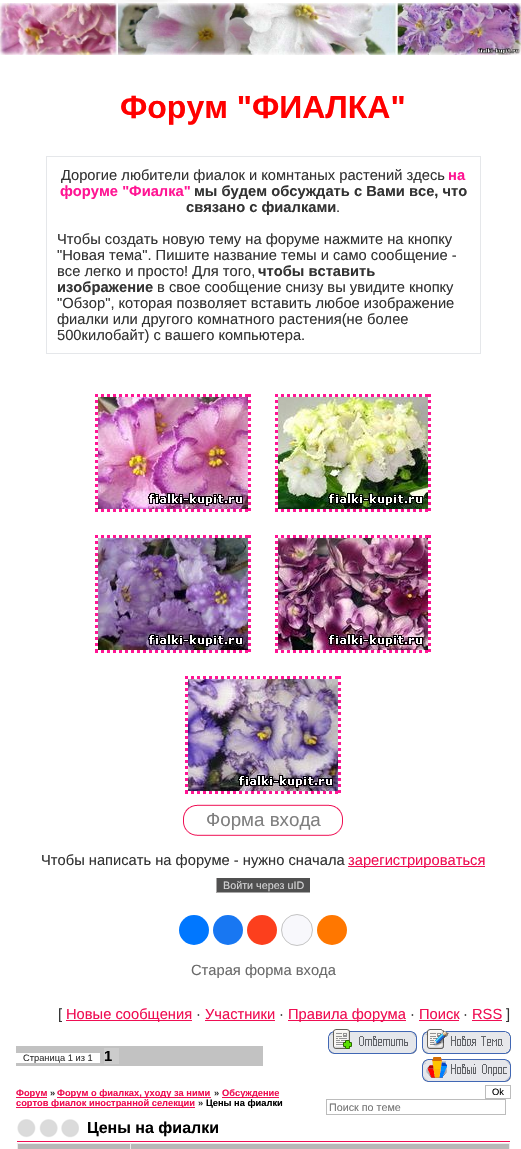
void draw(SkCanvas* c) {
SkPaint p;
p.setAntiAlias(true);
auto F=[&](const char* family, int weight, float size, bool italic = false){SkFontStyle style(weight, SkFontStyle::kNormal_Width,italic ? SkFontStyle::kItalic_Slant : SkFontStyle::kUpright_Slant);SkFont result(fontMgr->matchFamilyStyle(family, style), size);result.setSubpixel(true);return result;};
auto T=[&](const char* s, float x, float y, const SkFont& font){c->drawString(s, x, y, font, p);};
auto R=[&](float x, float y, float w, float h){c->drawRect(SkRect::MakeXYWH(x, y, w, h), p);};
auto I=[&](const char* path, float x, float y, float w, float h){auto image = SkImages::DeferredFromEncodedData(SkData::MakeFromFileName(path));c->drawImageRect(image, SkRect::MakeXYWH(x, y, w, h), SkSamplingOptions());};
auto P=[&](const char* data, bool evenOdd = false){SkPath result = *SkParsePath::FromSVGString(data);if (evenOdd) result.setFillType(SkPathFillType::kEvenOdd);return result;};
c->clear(0xffffffff);
I("1.png",114,0,64,3);
I("2.png",0,3,521,52);
auto f1 = F("Liberation Sans",700,32);
p.setColor(0xffff0000);
T("Форум \"ФИАЛКА\"",120,118,f1);
p.setStroke(true);
p.setStrokeWidth(1);
p.setColor(0xffe5e7ea);
c->drawRect(SkRect::MakeXYWH(46.5,156.5,434,197),p);
auto f2 = F("Liberation Sans",400,14.7);
p.setStroke(false);
p.setColor(0xff333333);
T("Дорогие любители фиалок и комнтаных растений здесь",61,180,f2);
auto f3 = F("Liberation Sans",700,14.7);
p.setColor(0xffff1493);
T("на",448,180,f3);
T("форуме \"Фиалка\"",60,196,f3);
p.setColor(0xff333333);
T("мы будем обсуждать с Вами все, что",194,196,f3);
T("связано с фиалками",186,212,f3);
T(".",336,212,f2);
T("Чтобы создать новую тему на форуме нажмите на кнопку",57,244,f2);
T("\"Новая тема\". Пишите название темы и само сообщение -",57,260,f2);
T("все легко и просто! Для того,",57,276,f2);
T("чтобы вставить",258,276,f3);
T("изображение",57,292,f3);
T("в свое сообщение снизу вы увидите кнопку",157,292,f2);
T("\"Обзор\", которая позволяет вставить любое изображение",57,308,f2);
T("фиалки или другого комнатного растения(не более",57,324,f2);
T("500килобайт) с вашего компьютера.",57,340,f2);
p.setStroke(true);
p.setStrokeWidth(3);
p.setColor(0xffff1493);
p.setPathEffect(SkDashPathEffect::Make({{3,3}}, 0));
c->drawPath(P("M95 395.5h156"),p);
p.setPathEffect(nullptr);
p.setPathEffect(SkDashPathEffect::Make({{3,3}}, 0));
c->drawPath(P("M95 510.5h156"),p);
p.setPathEffect(nullptr);
p.setPathEffect(SkDashPathEffect::Make({{3,3}}, 0));
c->drawPath(P("M96.5 394v118"),p);
p.setPathEffect(nullptr);
p.setPathEffect(SkDashPathEffect::Make({{3,3}}, 0));
c->drawPath(P("M249.5 394v118"),p);
p.setPathEffect(nullptr);
p.setPathEffect(SkDashPathEffect::Make({{3,3}}, 0));
c->drawPath(P("M275 395.5h156"),p);
p.setPathEffect(nullptr);
I("3.png",98,397,150,112);
p.setPathEffect(SkDashPathEffect::Make({{3,3}}, 0));
c->drawPath(P("M275 510.5h156"),p);
p.setPathEffect(nullptr);
p.setPathEffect(SkDashPathEffect::Make({{3,3}}, 0));
c->drawPath(P("M276.5 394v118"),p);
p.setPathEffect(nullptr);
I("4.png",278,397,150,112);
p.setPathEffect(SkDashPathEffect::Make({{3,3}}, 0));
c->drawPath(P("M429.5 394v118"),p);
p.setPathEffect(nullptr);
p.setPathEffect(SkDashPathEffect::Make({{3,3}}, 0));
c->drawPath(P("M95 536.5h156"),p);
p.setPathEffect(nullptr);
p.setPathEffect(SkDashPathEffect::Make({{3,3}}, 0));
c->drawPath(P("M95 651.5h156"),p);
p.setPathEffect(nullptr);
p.setPathEffect(SkDashPathEffect::Make({{3,3}}, 0));
c->drawPath(P("M96.5 535v118"),p);
p.setPathEffect(nullptr);
p.setPathEffect(SkDashPathEffect::Make({{3,3}}, 0));
c->drawPath(P("M249.5 535v118"),p);
p.setPathEffect(nullptr);
p.setPathEffect(SkDashPathEffect::Make({{3,3}}, 0));
c->drawPath(P("M275 536.5h156"),p);
p.setPathEffect(nullptr);
I("5.png",98,538,150,112);
p.setPathEffect(SkDashPathEffect::Make({{3,3}}, 0));
c->drawPath(P("M275 651.5h156"),p);
p.setPathEffect(nullptr);
p.setPathEffect(SkDashPathEffect::Make({{3,3}}, 0));
c->drawPath(P("M276.5 535v118"),p);
p.setPathEffect(nullptr);
I("6.png",278,538,150,112);
p.setPathEffect(SkDashPathEffect::Make({{3,3}}, 0));
c->drawPath(P("M429.5 535v118"),p);
p.setPathEffect(nullptr);
p.setPathEffect(SkDashPathEffect::Make({{3,3}}, 0));
c->drawPath(P("M185 677.5h156"),p);
p.setPathEffect(nullptr);
p.setPathEffect(SkDashPathEffect::Make({{3,3}}, 0));
c->drawPath(P("M185 792.5h156"),p);
p.setPathEffect(nullptr);
p.setPathEffect(SkDashPathEffect::Make({{3,3}}, 0));
c->drawPath(P("M186.5 676v118"),p);
p.setPathEffect(nullptr);
I("7.png",188,679,150,112);
p.setPathEffect(SkDashPathEffect::Make({{3,3}}, 0));
c->drawPath(P("M339.5 676v118"),p);
p.setPathEffect(nullptr);
I("8.png",183,804,160,18);
I("9.png",183,822,160,14);
auto f4 = F("Liberation Sans",400,18.75);
p.setStroke(false);
p.setColor(0xff7f7f7f);
T("Форма входа",206,826,f4);
p.setColor(0xff333333);
T("Чтобы написать на форуме - нужно сначала",41,865,f2);
p.setColor(0xffef0e53);
R(348,866,137,1);
T("зарегистрироваться",348,865,f2);
p.setColor(0xff505050);
R(217,878,93,14);
p.setColor(0xffa8a7a7);
R(216,892,94,1);
R(216,878,1,15);
auto f5 = F("Liberation Sans",400,10.75);
p.setColor(0xffd5d5d6);
T("Войти через uID",223,889,f5);
p.setColor(0xff0077ff);
c->drawCircle(194,930,15,p);
p.setColor(0xff1877f2);
c->drawCircle(228,930,15,p);
p.setColor(0xfffc3f1d);
c->drawCircle(262,930,15,p);
p.setColor(0xfff8f8fc);
c->drawCircle(297,930,15.5,p);
p.setStroke(true);
p.setStrokeWidth(1);
p.setColor(0xffc4c4c4);
c->drawCircle(297,930,15.5,p);
p.setStroke(false);
p.setColor(0xffff7700);
c->drawCircle(332,930,15,p);
p.setColor(0xff6a6a6a);
T("Старая форма входа",191,975,f2);
p.setColor(0xff333333);
T("[",58,1019,f2);
p.setColor(0xffef0e53);
R(66,1020,126,1);
T("Новые сообщения",66,1019,f2);
p.setColor(0xff333333);
T("·",196,1019,f2);
p.setColor(0xffef0e53);
T("Участники",205,1019,f2);
R(205,1020,70,1);
p.setColor(0xff333333);
T("·",279,1019,f2);
p.setColor(0xffef0e53);
R(288,1020,118,1);
T("Правила форума",288,1019,f2);
p.setColor(0xff333333);
T("·",410,1019,f2);
p.setColor(0xffef0e53);
T("Поиск",419,1019,f2);
R(419,1020,40,1);
p.setColor(0xff333333);
T("·",463,1019,f2);
p.setColor(0xffef0e53);
T("RSS",472,1019,f2);
R(472,1020,30,1);
p.setColor(0xff333333);
T("]",506,1019,f2);
p.setColor(0xffc2c2c2);
R(16,1046,247,20);
p.setColor(0xffffffff);
R(16,1053,84,10);
auto f6 = F("Liberation Sans",400,9.3);
p.setColor(0xff333333);
T("Страница 1 из 1",23,1061,f6);
p.setColor(0xffcccccc);
R(104,1048,15,16);
p.setColor(0xff000000);
T("1",104,1061,f3);
I("10.png",328,1029,89,25);
I("11.png",422,1029,89,25);
I("12.png",422,1057,89,25);
p.setColor(0xffef0e53);
R(16,1097,31,1);
auto f7 = F("Liberation Sans",700,9.3);
T("Форум",16,1096,f7);
p.setColor(0xff333333);
T("»",50,1096,f7);
p.setColor(0xffef0e53);
R(57,1097,154,1);
T("Форум о фиалках, уходу за ними",57,1096,f7);
p.setColor(0xff333333);
T("»",214,1096,f7);
p.setColor(0xffef0e53);
R(222,1097,57,1);
T("Обсуждение",222,1096,f7);
R(16,1107,179,1);
T("сортов фиалок иностранной селекции",16,1106,f7);
p.setColor(0xff333333);
T("»",198,1106,f7);
p.setColor(0xff000000);
T("Цены на фиалки",206,1106,f7);
p.setStroke(true);
p.setColor(0xffbcbcbc);
c->drawRect(SkRect::MakeXYWH(485.5,1085.5,25,13),p);
p.setStroke(false);
p.setColor(0xff000000);
T("Ok",492,1095,f6);
p.setStroke(true);
p.setColor(0xffbcbcbc);
c->drawRect(SkRect::MakeXYWH(326.5,1099.5,179,15),p);
p.setStroke(false);
p.setColor(0xff757575);
T("Поиск по теме",329,1111,f5);
I("13.png",17,1119,62,19);
auto f8 = F("Liberation Sans",700,16);
p.setColor(0xff000000);
T("Цены на фиалки",87,1133,f8);
p.setColor(0xffef0e53);
R(17,1141,493,1);
p.setColor(0xffebebeb);
R(17,1143,493,6);
p.setColor(0xffb7b7b7);
R(18,1144,112,5);
R(131,1144,378,5);
}
